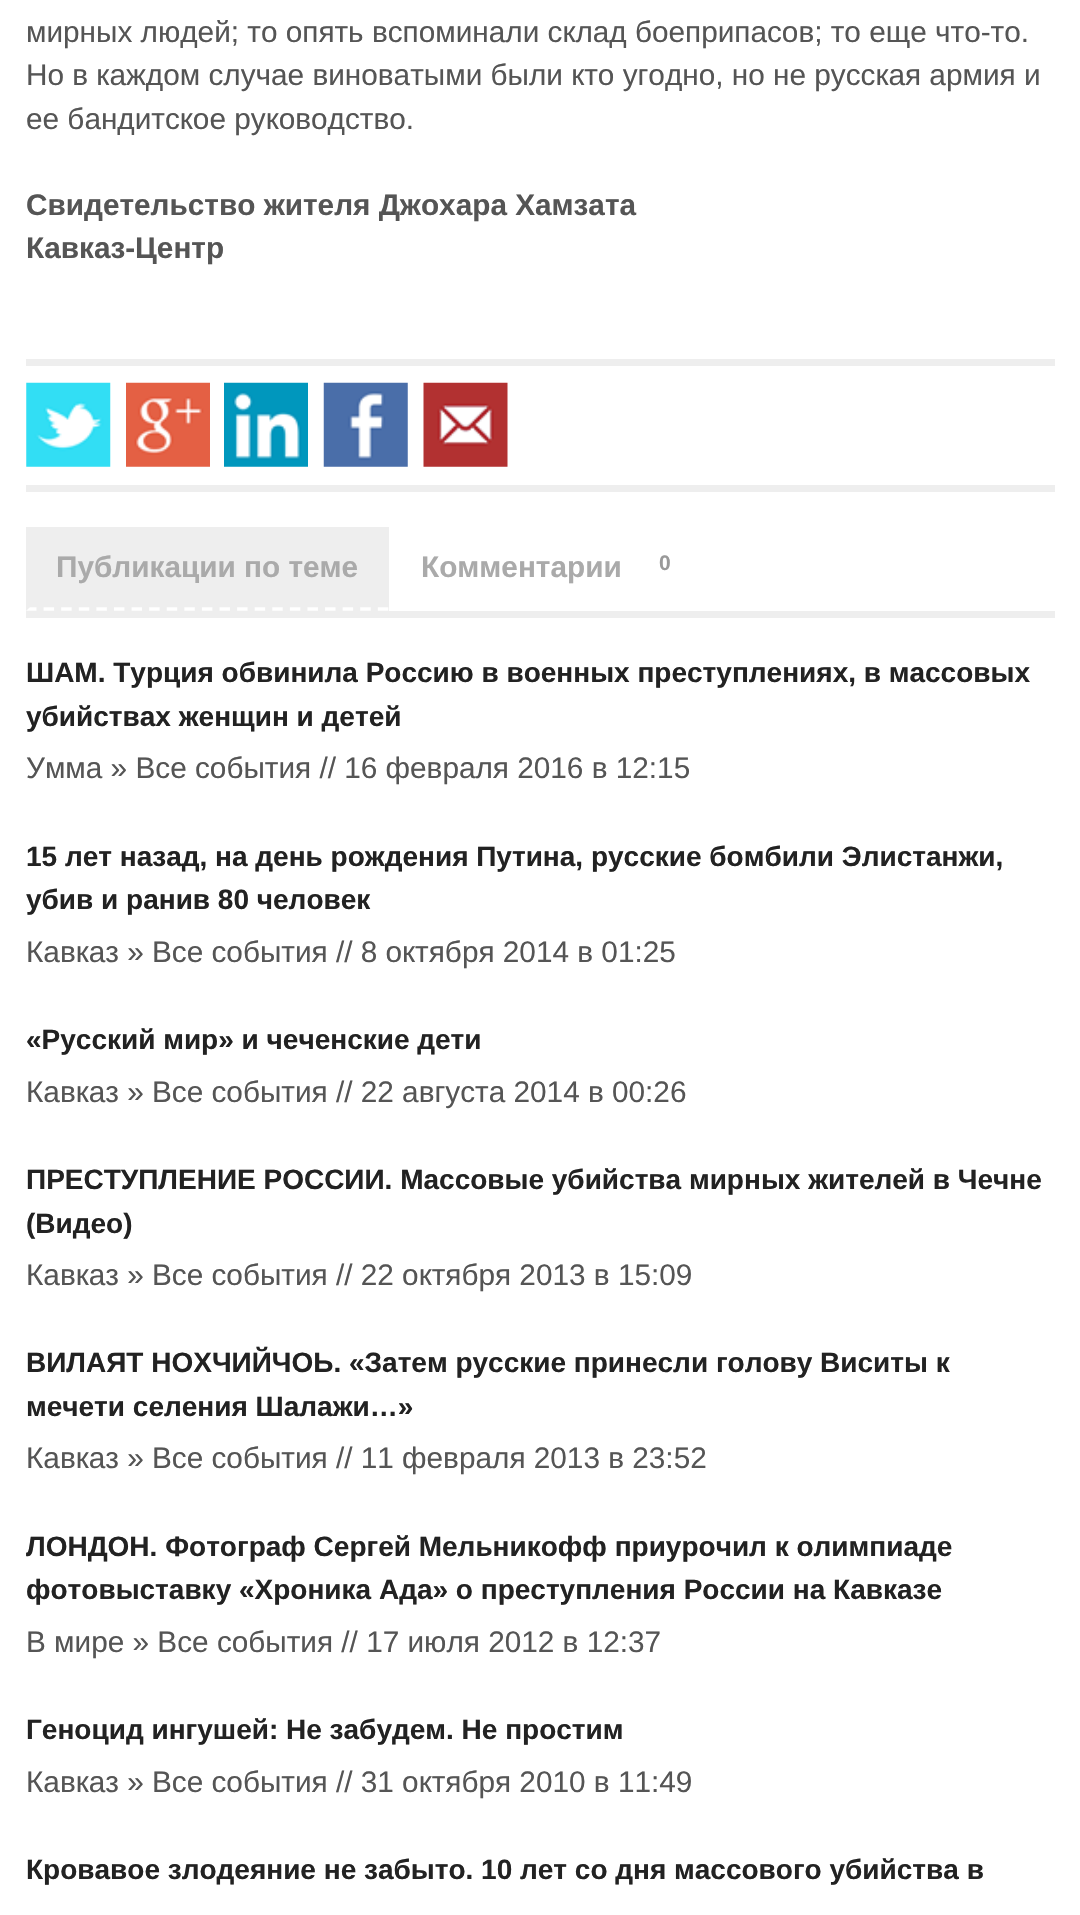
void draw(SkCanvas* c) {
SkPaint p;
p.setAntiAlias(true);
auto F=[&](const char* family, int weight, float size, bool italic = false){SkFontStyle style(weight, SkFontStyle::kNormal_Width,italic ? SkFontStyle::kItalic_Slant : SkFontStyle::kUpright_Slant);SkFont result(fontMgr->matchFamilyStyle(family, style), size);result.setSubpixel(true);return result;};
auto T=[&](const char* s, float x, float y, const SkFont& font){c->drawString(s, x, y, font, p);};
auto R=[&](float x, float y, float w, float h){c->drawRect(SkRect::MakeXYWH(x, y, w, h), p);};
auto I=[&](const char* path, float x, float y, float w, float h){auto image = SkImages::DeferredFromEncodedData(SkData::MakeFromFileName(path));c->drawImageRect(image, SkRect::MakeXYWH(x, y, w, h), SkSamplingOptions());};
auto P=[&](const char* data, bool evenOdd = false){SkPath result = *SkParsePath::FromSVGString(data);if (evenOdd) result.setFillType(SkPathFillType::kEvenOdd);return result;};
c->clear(0xffffffff);
auto f1 = F("Liberation Sans",400,29.75);
p.setColor(0xff555555);
T("мирных людей; то опять вспоминали склад боеприпасов; то еще что-то.",26,42,f1);
T("Но в каждом случае виноватыми были кто угодно, но не русская армия и",26,85,f1);
T("ее бандитское руководство.",26,129,f1);
auto f2 = F("Liberation Sans",700,29.75);
T("Свидетельство жителя Джохара Хамзата",26,215,f2);
T("Кавказ-Центр",26,258,f2);
p.setColor(0xffeeeeee);
R(26,359,1029,7);
I("1.png",26,382,85,85);
I("2.png",126,382,84,85);
I("3.png",224,382,84,85);
I("4.png",323,382,85,85);
I("5.png",423,382,85,85);
R(26,485,1029,7);
R(26,527,363,84);
p.setStroke(true);
p.setStrokeWidth(3.5);
p.setColor(0xffffffff);
p.setPathEffect(SkDashPathEffect::Make({{10.5f,7.09f}}, 0));
c->drawPath(P("M26 609h362.5"),p);
p.setPathEffect(nullptr);
p.setStroke(false);
p.setColor(0xffeeeeee);
c->drawPath(P("M26 611v-84l4 3v77z"),p);
p.setColor(0xffaaaaaa);
T("Публикации по теме",56,577,f2);
T("Комментарии",421,577,f2);
auto f3 = F("Liberation Sans",700,21);
p.setColor(0xff999999);
T("0",659,570,f3);
p.setColor(0xffeeeeee);
R(26,611,1029,7);
auto f4 = F("Liberation Sans",700,28);
p.setColor(0xff222222);
T("ШАМ. Турция обвинила Россию в военных преступлениях, в массовых",26,682,f4);
T("убийствах женщин и детей",26,726,f4);
p.setColor(0xff555555);
T("Умма » Все события // 16 февраля 2016 в 12:15",26,778,f1);
p.setColor(0xff222222);
T("15 лет назад, на день рождения Путина, русские бомбили Элистанжи,",26,866,f4);
T("убив и ранив 80 человек",26,909,f4);
p.setColor(0xff555555);
T("Кавказ » Все события // 8 октября 2014 в 01:25",26,962,f1);
p.setColor(0xff222222);
T("«Русский мир» и чеченские дети",26,1049,f4);
p.setColor(0xff555555);
T("Кавказ » Все события // 22 августа 2014 в 00:26",26,1102,f1);
p.setColor(0xff222222);
T("ПРЕСТУПЛЕНИЕ РОССИИ. Массовые убийства мирных жителей в Чечне",26,1189,f4);
T("(Видео)",26,1233,f4);
p.setColor(0xff555555);
T("Кавказ » Все события // 22 октября 2013 в 15:09",26,1285,f1);
p.setColor(0xff222222);
T("ВИЛАЯТ НОХЧИЙЧОЬ. «Затем русские принесли голову Виситы к",26,1372,f4);
T("мечети селения Шалажи…»",26,1416,f4);
p.setColor(0xff555555);
T("Кавказ » Все события // 11 февраля 2013 в 23:52",26,1468,f1);
p.setColor(0xff222222);
T("ЛОНДОН. Фотограф Сергей Мельникофф приурочил к олимпиаде",26,1556,f4);
T("фотовыставку «Хроника Ада» о преступления России на Кавказе",26,1599,f4);
p.setColor(0xff555555);
T("В мире » Все события // 17 июля 2012 в 12:37",26,1652,f1);
p.setColor(0xff222222);
T("Геноцид ингушей: Не забудем. Не простим",26,1739,f4);
p.setColor(0xff555555);
T("Кавказ » Все события // 31 октября 2010 в 11:49",26,1792,f1);
p.setColor(0xff222222);
T("Кровавое злодеяние не забыто. 10 лет со дня массового убийства в",26,1879,f4);
}
